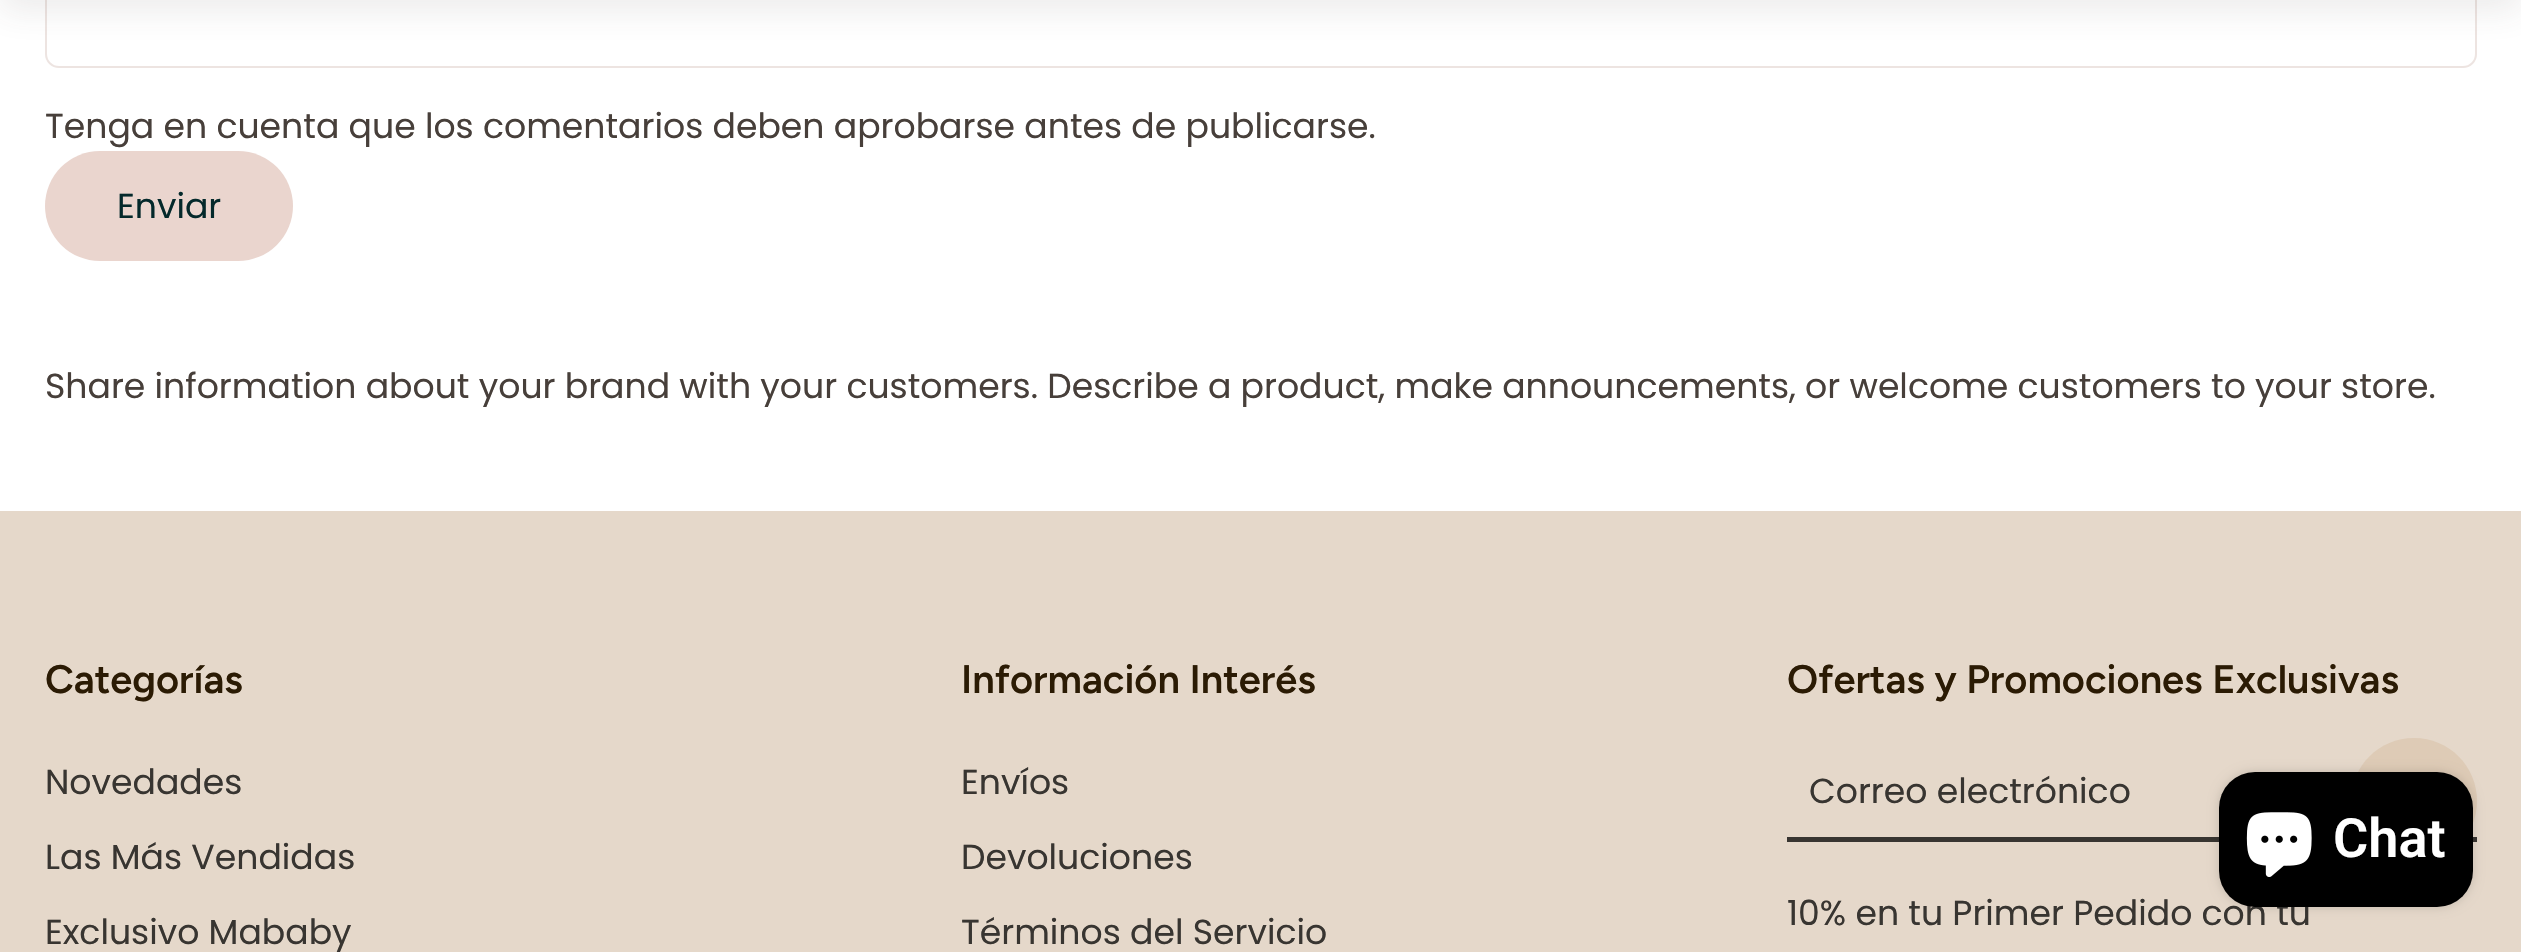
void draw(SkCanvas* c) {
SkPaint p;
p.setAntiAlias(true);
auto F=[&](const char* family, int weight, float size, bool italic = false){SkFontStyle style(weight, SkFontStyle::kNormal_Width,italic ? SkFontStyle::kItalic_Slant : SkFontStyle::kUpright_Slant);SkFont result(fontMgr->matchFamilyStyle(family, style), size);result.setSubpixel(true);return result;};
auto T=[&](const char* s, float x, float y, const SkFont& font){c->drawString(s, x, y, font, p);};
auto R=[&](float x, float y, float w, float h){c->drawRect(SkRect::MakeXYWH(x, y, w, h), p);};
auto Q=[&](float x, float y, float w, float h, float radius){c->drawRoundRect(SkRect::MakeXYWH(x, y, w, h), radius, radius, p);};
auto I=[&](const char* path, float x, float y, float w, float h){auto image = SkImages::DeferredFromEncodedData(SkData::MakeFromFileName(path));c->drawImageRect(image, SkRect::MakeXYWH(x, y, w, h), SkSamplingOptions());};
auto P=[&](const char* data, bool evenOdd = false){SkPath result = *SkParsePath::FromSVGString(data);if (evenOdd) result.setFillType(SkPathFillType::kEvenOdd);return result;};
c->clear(0xffffffff);
p.setStroke(true);
p.setStrokeWidth(2);
p.setColor(0xffede4e1);
c->drawRoundRect(SkRect::MakeXYWH(46,-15,2430,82),13,13,p);
p.setStroke(false);
p.setColor(0x1a473f3a);
p.setMaskFilter(SkMaskFilter::MakeBlur(kNormal_SkBlurStyle, 17));
c->drawRect(SkRect::MakeXYWH(0,-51,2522,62),p);
p.setMaskFilter(nullptr);
auto f1 = F("Poppins",400,34.65);
p.setColor(0xff473f3a);
T("Tenga en cuenta que los comentarios deben aprobarse antes de publicarse.",45,138,f1);
p.setColor(0xffead5ce);
Q(45,151,248,110,55);
p.setColor(0xff04292b);
T("Enviar",117,218,f1);
p.setColor(0xff473f3a);
T("Share information about your brand with your customers. Describe a product, make announcements, or welcome customers to your store.",45,398,f1);
p.setColor(0xffe5d8ca);
R(0,511,2521,441);
auto f2 = F("Figtree",600,39.8);
p.setColor(0xff2b1b04);
T("Categorías",45,693,f2);
p.setColor(0xff383531);
T("Novedades",45,794,f1);
T("Las Más Vendidas",45,869,f1);
T("Exclusivo Mababy",45,944,f1);
p.setColor(0xff2b1b04);
T("Información Interés",961,693,f2);
p.setColor(0xff383531);
T("Envíos",961,794,f1);
T("Devoluciones",961,869,f1);
T("Términos del Servicio",961,944,f1);
p.setColor(0xff2b1b04);
T("Ofertas y Promociones Exclusivas",1787,693,f2);
p.setColor(0xff383531);
T("Correo electrónico",1809,803,f1);
R(1787,837,432,5);
R(2473,837,4,5);
T("10% en tu Primer Pedido con tu",1787,925,f1);
p.setColor(0xffdecbb6);
c->drawPath(P("M2351 801c0-35 28-63 63-63c35 0 63 28 63 63c0 35-28 63-63 63c-35 0-63-28-63-63z"),p);
p.setColor(0x26000000);
p.setMaskFilter(SkMaskFilter::MakeBlur(kNormal_SkBlurStyle, 5.5));
c->drawRoundRect(SkRect::MakeXYWH(2219,772,254,135),36,36,p);
p.setMaskFilter(nullptr);
p.setColor(0xff000000);
Q(2219,772,254,135,36);
I("1.png",2246,812,66,65);
auto f3 = F("Roboto",600,54);
p.setColor(0xffffffff);
T("Chat",2333,857,f3);
}
